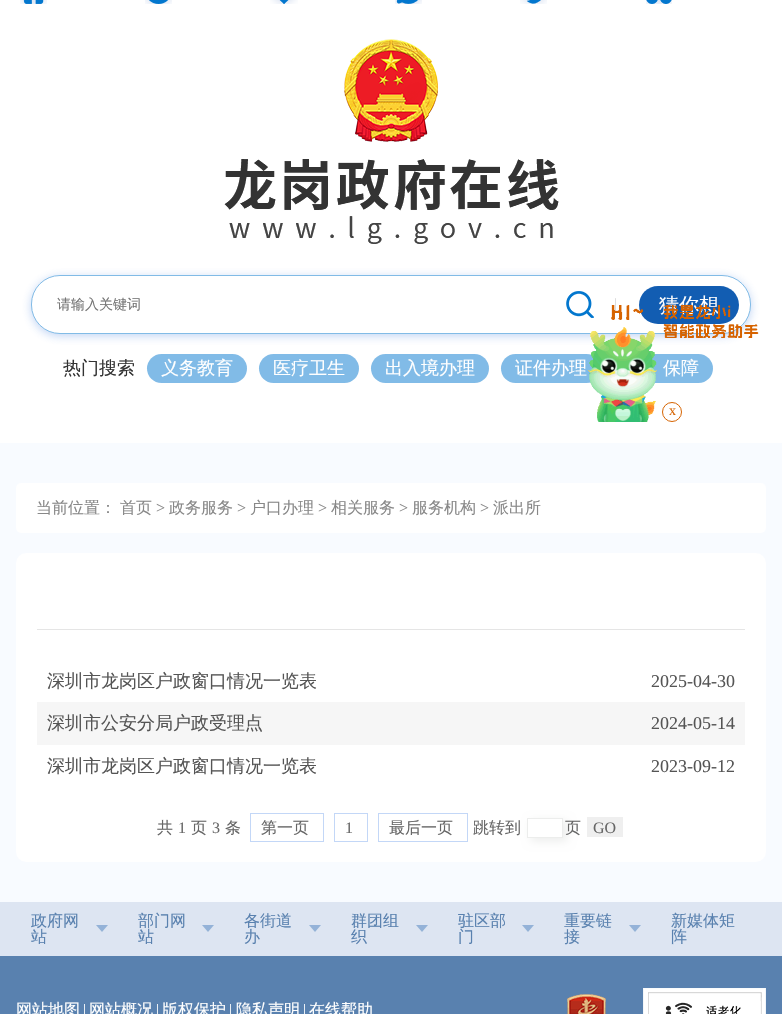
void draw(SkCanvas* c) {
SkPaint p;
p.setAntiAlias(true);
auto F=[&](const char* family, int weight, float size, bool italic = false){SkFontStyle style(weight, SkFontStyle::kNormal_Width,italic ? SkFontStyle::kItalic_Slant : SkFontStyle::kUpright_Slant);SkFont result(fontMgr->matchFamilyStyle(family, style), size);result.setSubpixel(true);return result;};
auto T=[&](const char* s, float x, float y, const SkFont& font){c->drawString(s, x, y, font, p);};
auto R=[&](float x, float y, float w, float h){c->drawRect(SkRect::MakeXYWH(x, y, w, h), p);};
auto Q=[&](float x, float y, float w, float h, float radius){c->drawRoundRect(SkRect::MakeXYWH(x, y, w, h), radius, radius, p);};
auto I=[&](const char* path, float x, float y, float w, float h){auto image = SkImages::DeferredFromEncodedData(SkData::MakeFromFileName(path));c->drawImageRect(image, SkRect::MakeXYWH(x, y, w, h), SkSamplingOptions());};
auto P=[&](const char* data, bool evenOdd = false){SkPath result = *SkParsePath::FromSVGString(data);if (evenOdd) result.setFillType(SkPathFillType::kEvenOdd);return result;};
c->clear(0xffffffff);
I("1.png",20,0,27,4);
I("2.png",145,0,27,4);
I("3.png",270,0,28,4);
I("4.png",395,0,27,4);
I("5.png",520,0,27,4);
I("6.png",646,0,26,4);
I("7.png",344,39,94,103);
I("8.png",224,159,335,85);
p.setColor(0x4d2f72da);
p.setMaskFilter(SkMaskFilter::MakeBlur(kNormal_SkBlurStyle, 5));
c->drawRoundRect(SkRect::MakeXYWH(31,277,720,59),29,29,p);
p.setMaskFilter(nullptr);
p.setColor(0xffffffff);
c->drawRoundRect(SkRect::MakeXYWH(31.5,275.5,719,58),28.5,28.5,p);
p.setStroke(true);
p.setStrokeWidth(1);
p.setColor(0xff81bbe6);
c->drawRoundRect(SkRect::MakeXYWH(31.5,275.5,719,58),28.5,28.5,p);
auto f1 = F("WenQuanYi Zen Hei",500,14);
p.setStroke(false);
p.setColor(0xff757575);
T("请输入关键词",57,309,f1);
I("9.png",566,291,28,27);
auto f2 = F("Liberation Serif",400,14);
p.setColor(0xffd2d2d2);
T("|",614,308,f2);
p.setColor(0xff125db2);
Q(639,286,100,38,19);
auto f3 = F("WenQuanYi Zen Hei",500,20);
p.setColor(0xffffffff);
T("猜你想",659,312,f3);
auto f4 = F("WenQuanYi Zen Hei",500,18);
p.setColor(0xff333333);
T("热门搜索",63,374,f4);
p.setColor(0xff81bbe7);
Q(147,354,100,29,14.5);
p.setColor(0xffffffff);
T("义务教育",161,374,f4);
p.setColor(0xff81bbe7);
Q(259,354,100,29,14.5);
p.setColor(0xffffffff);
T("医疗卫生",273,374,f4);
p.setColor(0xff81bbe7);
Q(371,354,118,29,14.5);
p.setColor(0xffffffff);
T("出入境办理",385,374,f4);
p.setColor(0xff81bbe7);
Q(501,354,100,29,14.5);
p.setColor(0xffffffff);
T("证件办理",515,374,f4);
p.setColor(0xff81bbe7);
Q(613,354,100,29,14.5);
p.setColor(0xffffffff);
T("保障",663,374,f4);
I("10.png",588,305,171,117);
p.setStroke(true);
p.setColor(0xffd66300);
c->drawCircle(672,412,9.5,p);
p.setStroke(false);
T("x",669,415,f2);
p.setColor(0xfff8fbff);
R(0,443,782,459);
p.setColor(0xffffffff);
Q(16,483,750,50,5);
auto f5 = F("WenQuanYi Zen Hei",500,16);
p.setColor(0xff888888);
T("当前位置：",36,513,f5);
T("首页",120,513,f5);
auto f6 = F("Liberation Serif",400,16);
T(">",156,513,f6);
T("政务服务",169,513,f5);
T(">",237,513,f6);
T("户口办理",250,513,f5);
T(">",318,513,f6);
T("相关服务",331,513,f5);
T(">",399,513,f6);
T("服务机构",412,513,f5);
T(">",480,513,f6);
T("派出所",493,513,f5);
p.setColor(0xffffffff);
Q(16,553,750,309,10);
p.setColor(0xffe5e5e5);
R(37,629,708,1);
p.setColor(0xff555555);
T("深圳市龙岗区户政窗口情况一览表",47,687,f4);
auto f7 = F("Liberation Serif",400,18);
T("2025-04-30",651,687,f7);
p.setColor(0xfff6f6f6);
R(37,702,708,43);
p.setColor(0xff555555);
T("深圳市公安分局户政受理点",47,729,f4);
T("2024-05-14",651,729,f7);
T("深圳市龙岗区户政窗口情况一览表",47,772,f4);
T("2023-09-12",651,772,f7);
p.setColor(0xff666666);
T("共",157,833,f5);
T("1",178,833,f6);
T("页",191,833,f5);
T("3",212,833,f6);
T("条",225,833,f5);
p.setStroke(true);
p.setColor(0xffc3d7f7);
c->drawRect(SkRect::MakeXYWH(250.5,813.5,73,28),p);
p.setStroke(false);
p.setColor(0xff666666);
T("第一页",261,833,f5);
p.setStroke(true);
p.setColor(0xffc3d7f7);
c->drawRect(SkRect::MakeXYWH(334.5,813.5,33,28),p);
p.setStroke(false);
p.setColor(0xff666666);
T("1",345,833,f6);
p.setStroke(true);
p.setColor(0xffc3d7f7);
c->drawRect(SkRect::MakeXYWH(378.5,813.5,89,28),p);
p.setStroke(false);
p.setColor(0xff666666);
T("最后一页",389,833,f5);
T("跳转到",473,833,f5);
c->save();
c->clipPath(P("M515 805h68v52h-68zm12 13h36v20h-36z",true),true);
p.setColor(0xffecedec);
p.setMaskFilter(SkMaskFilter::MakeBlur(kNormal_SkBlurStyle, 5));
c->drawRect(SkRect::MakeXYWH(531,821,36,20),p);
p.setMaskFilter(nullptr);
c->restore();
p.setStroke(true);
c->drawRect(SkRect::MakeXYWH(527.5,818.5,35,19),p);
p.setStroke(false);
p.setColor(0xff666666);
T("页",565,833,f5);
p.setColor(0xffefefef);
R(587,817,36,20);
p.setColor(0xff666666);
T("GO",593,833,f6);
p.setColor(0xffdde5f2);
R(0,902,782,54);
p.setColor(0xff5981af);
T("政府网",31,926,f5);
T("站",31,942,f5);
I("11.png",96,925,12,7);
T("部门网",138,926,f5);
T("站",138,942,f5);
I("11.png",202,925,12,7);
T("各街道",244,926,f5);
T("办",244,942,f5);
I("11.png",309,925,12,7);
T("群团组",351,926,f5);
T("织",351,942,f5);
I("11.png",416,925,12,7);
T("驻区部",458,926,f5);
T("门",458,942,f5);
I("11.png",522,925,12,7);
T("重要链",564,926,f5);
T("接",564,942,f5);
I("11.png",629,925,12,7);
T("新媒体矩",671,926,f5);
T("阵",671,942,f5);
R(0,956,782,58);
p.setColor(0xffffffff);
T("网站地图",16,1015,f5);
T("|",83,1015,f6);
T("网站概况",89,1015,f5);
T("|",156,1015,f6);
T("版权保护",162,1015,f5);
T("|",229,1015,f6);
T("隐私声明",236,1015,f5);
T("|",303,1015,f6);
T("在线帮助",309,1015,f5);
I("12.png",567,994,39,20);
I("13.png",643,988,123,26);
}
